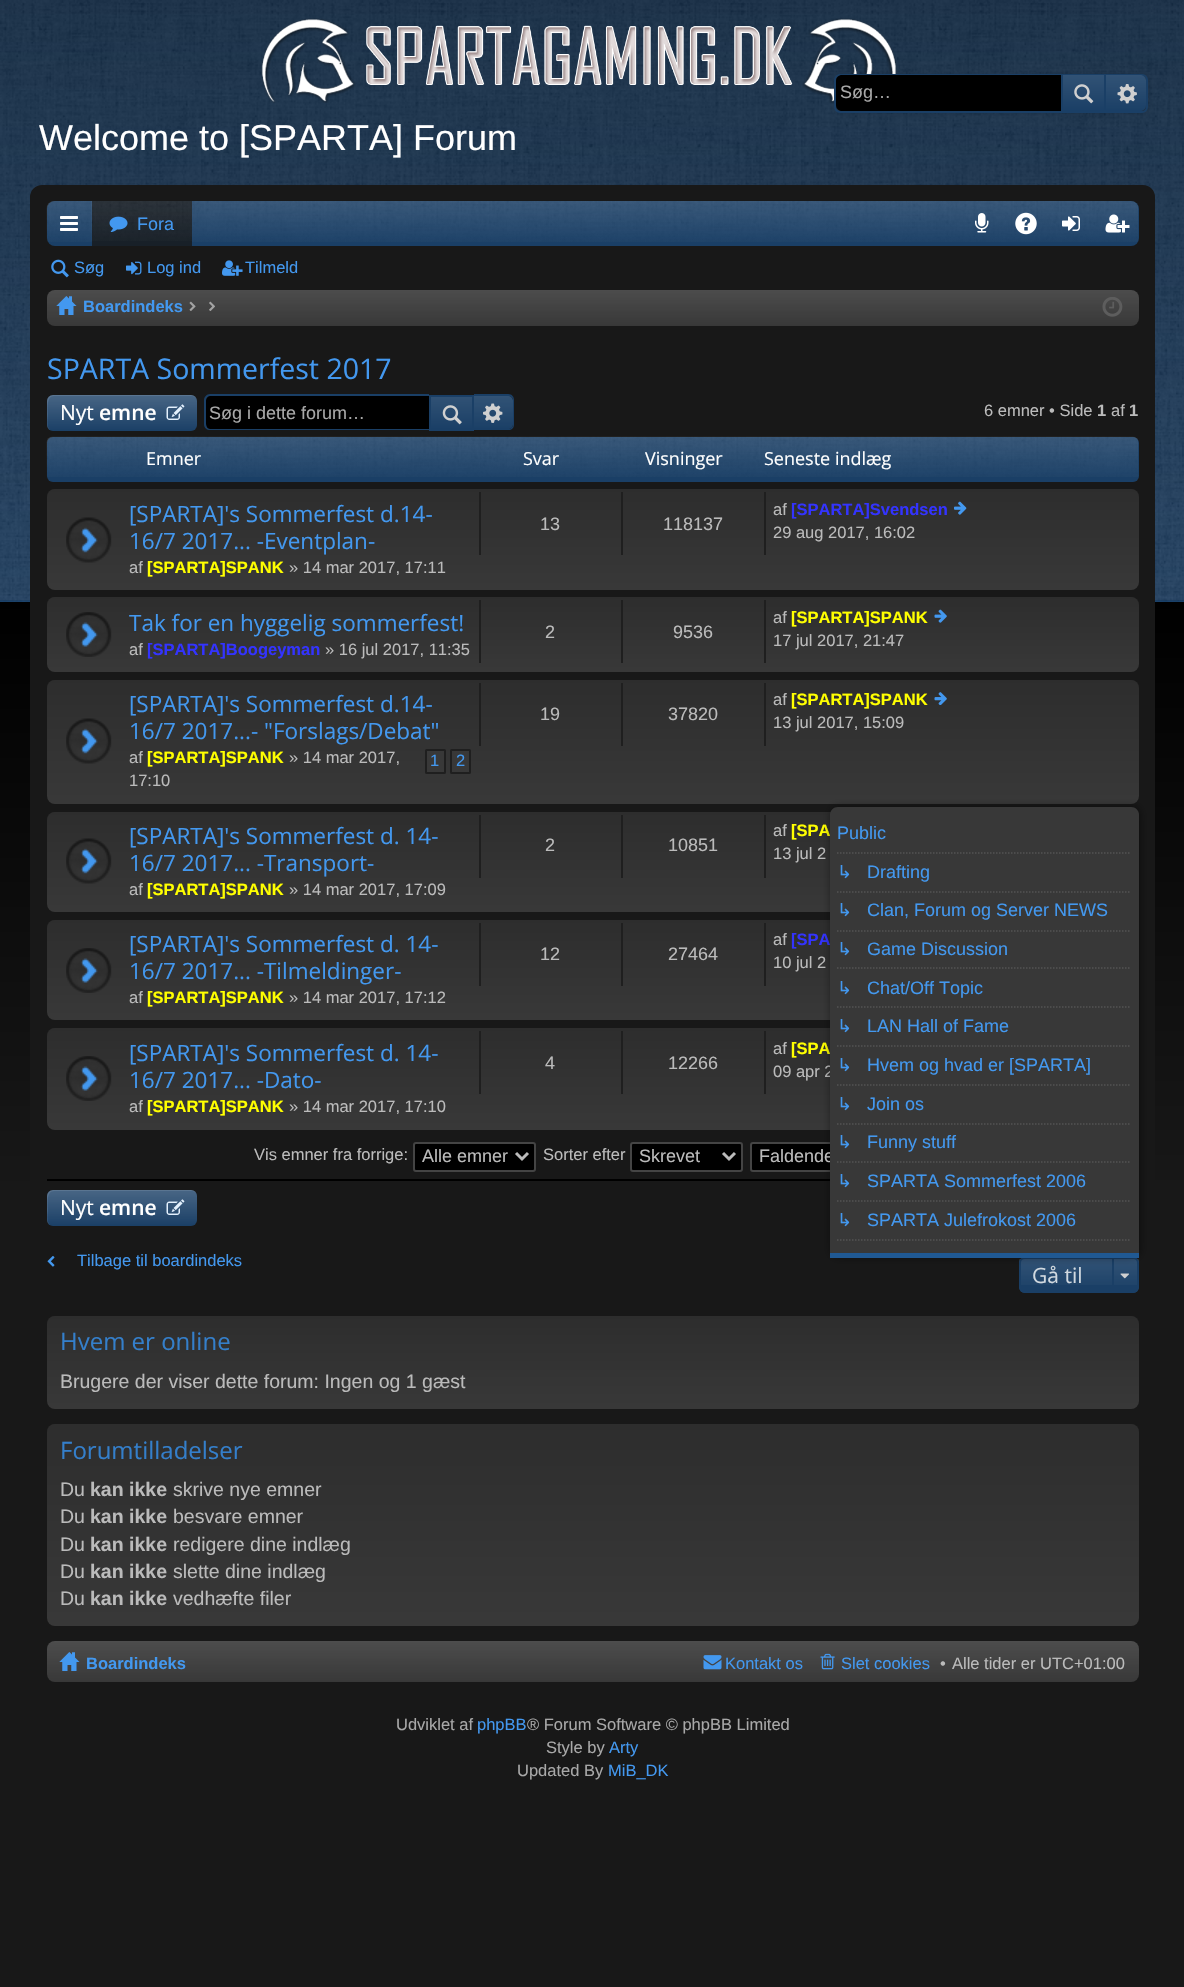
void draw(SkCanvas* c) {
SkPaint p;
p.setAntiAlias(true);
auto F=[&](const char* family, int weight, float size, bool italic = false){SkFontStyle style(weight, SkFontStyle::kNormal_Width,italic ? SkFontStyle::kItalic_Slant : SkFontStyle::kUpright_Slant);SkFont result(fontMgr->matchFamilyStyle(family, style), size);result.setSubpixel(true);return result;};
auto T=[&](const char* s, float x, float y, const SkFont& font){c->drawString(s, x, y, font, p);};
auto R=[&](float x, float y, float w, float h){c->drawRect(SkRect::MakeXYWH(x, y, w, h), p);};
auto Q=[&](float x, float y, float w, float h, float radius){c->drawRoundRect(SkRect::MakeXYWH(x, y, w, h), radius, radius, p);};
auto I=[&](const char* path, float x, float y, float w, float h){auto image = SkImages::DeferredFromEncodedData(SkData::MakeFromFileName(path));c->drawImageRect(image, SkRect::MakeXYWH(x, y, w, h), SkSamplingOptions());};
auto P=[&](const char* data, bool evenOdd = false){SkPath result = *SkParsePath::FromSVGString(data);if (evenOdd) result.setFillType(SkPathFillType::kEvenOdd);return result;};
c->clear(0xffffffff);
{
const SkColor colors[] = {0xff000000,0xff000000,0xff181818};
const float stops[] = {0,.3,.6};
const SkPoint ends[] = {{592,0}, {593,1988}};
p.setShader(SkGradientShader::MakeLinear(ends, colors, stops, 3, SkTileMode::kClamp));
p.setAlpha(255);
}
R(0,602,1184,1385);
p.setShader(nullptr);
p.setColor(0xff1a3a5c);
R(0,0,1184,602);
I("1.png",0,0,1184,602);
p.setColor(0x331065bc);
R(0,600,1184,2);
I("4.png",261,18,636,85);
p.setColor(0x1a000000);
p.setMaskFilter(SkMaskFilter::MakeBlur(kNormal_SkBlurStyle, 2));
c->drawRoundRect(SkRect::MakeXYWH(836,75,313,39),6,6,p);
p.setMaskFilter(nullptr);
p.setStroke(true);
p.setStrokeWidth(2);
p.setColor(0xff1a3f66);
c->drawRoundRect(SkRect::MakeXYWH(835,75,312,37),5,5,p);
p.setStroke(false);
p.setColor(0xff000000);
c->drawPath(P("M842 75h219v36h-219c-3.5 0-6-2.5-6-6v-24c0-3.5 2.5-6 6-6z"),p);
auto f1 = F("Liberation Sans",400,18);
p.setColor(0xffa8a8a8);
T("Søg…",840,98,f1);
{
const SkColor colors[] = {0xff315275,0xff1a3f66};
const float stops[] = {0,1};
const SkPoint ends[] = {{1083,75}, {1083,111}};
p.setShader(SkGradientShader::MakeLinear(ends, colors, stops, 2, SkTileMode::kClamp));
p.setAlpha(255);
}
R(1063,75,41,36);
p.setShader(nullptr);
p.setColor(0xff1a3f66);
R(1104,75,2,36);
R(1061,75,2,36);
I("2.png",1074,84,20,20);
c->drawPath(P("M1106 75h34c3.5 0 6 2.5 6 6v24c0 3.5-2.5 6-6 6h-34z"),p);
{
const SkColor colors[] = {0x1affffff,0x00ffffff};
const float stops[] = {0,1};
const SkPoint ends[] = {{1126,75}, {1126,111}};
p.setShader(SkGradientShader::MakeLinear(ends, colors, stops, 2, SkTileMode::kClamp));
p.setAlpha(255);
}
c->drawPath(P("M1106 75h34c3.5 0 6 2.5 6 6v24c0 3.5-2.5 6-6 6h-34z"),p);
I("3.png",1117,84,20,20);
auto f2 = F("Liberation Sans",400,36);
p.setShader(nullptr);
p.setColor(0xffffffff);
T("Welcome to [SPARTA] Forum",39,150,f2);
p.setColor(0xff181818);
c->drawRoundRect(SkRect::MakeXYWH(31,186,1123,1511),11,11,p);
p.setStroke(true);
c->drawRoundRect(SkRect::MakeXYWH(31,186,1123,1511),11,11,p);
p.setStroke(false);
p.setColor(0xff1a3f66);
Q(47,201,1092,45,8);
I("5.png",46,201,1093,41);
I("6.png",60,216,18,15);
p.setColor(0xff182028);
R(92,201,100,45);
I("7.png",91,201,101,40);
I("8.png",109,216,19,16);
p.setColor(0xff4398ef);
T("Fora",137,230,f1);
I("9.png",975,213,14,20);
I("10.png",1015,212,22,23);
I("11.png",1062,216,18,15);
I("12.png",1105,214,25,19);
I("13.png",51,259,18,19);
auto f3 = F("Liberation Sans",400,16.5);
T("Søg",74,273,f3);
I("14.png",126,261,16,14);
T("Log ind",147,273,f3);
I("15.png",222,260,21,16);
T("Tilmeld",245,273,f3);
p.setColor(0xff383838);
Q(47,290,1092,36,8);
{
const SkColor colors[] = {0x1affffff,0x00ffffff};
const float stops[] = {0,1};
const SkPoint ends[] = {{593,289}, {593,326}};
p.setShader(SkGradientShader::MakeLinear(ends, colors, stops, 2, SkTileMode::kClamp));
p.setAlpha(255);
}
Q(47,290,1092,36,8);
I("16.png",56,296,21,19);
auto f4 = F("Liberation Sans",700,16.5);
p.setShader(nullptr);
p.setColor(0xff4398ef);
T("Boardindeks",83,312,f4);
I("17.png",189,301,7,10);
I("18.png",209,301,6,10);
I("19.png",1102,297,21,20);
auto f5 = F("Open Sans",400,28.5);
T("SPARTA Sommerfest 2017",47,379,f5);
p.setColor(0xff1a3f66);
Q(47,395,150,36,6);
{
const SkColor colors[] = {0x33ffffff,0x00ffffff};
const float stops[] = {0,1};
const SkPoint ends[] = {{122,395}, {122,431}};
p.setShader(SkGradientShader::MakeLinear(ends, colors, stops, 2, SkTileMode::kClamp));
p.setAlpha(255);
}
Q(47,395,150,36,6);
p.setShader(nullptr);
p.setColor(0x1affffff);
c->drawPath(P("M54 396h139l3 2c-1-2-3-3-5-3h-138c-3 0-6 3-6 6v24c0 2 1 4 3 5c-4-3-2-12-2-16c0-5-2-18 6-18z"),p);
auto f6 = F("Open Sans",400,21);
p.setColor(0xffffffff);
T("Nyt",60,420,f6);
auto f7 = F("Open Sans",600,21);
T("emne",99,420,f7);
I("20.png",166,404,19,16);
p.setColor(0xff000000);
c->drawPath(P("M211 396h218v33h-218c-3 0-5-2-5-5v-23c0-3 2-5 5-5z"),p);
p.setColor(0xff1a3f66);
c->drawPath(P("M210 394h219v36h-219c-3 0-6-2-6-6v-24c0-3 3-6 6-6zm0 2h219v33h-219c-2 0-4-2-4-5v-24c0-2 2-4 4-4z",true),p);
p.setColor(0xffa8a8a8);
T("Søg i dette forum…",209,419,f1);
{
const SkColor colors[] = {0xff315275,0xff1a3f66};
const float stops[] = {0,1};
const SkPoint ends[] = {{452,396}, {452,429}};
p.setShader(SkGradientShader::MakeLinear(ends, colors, stops, 2, SkTileMode::kClamp));
p.setAlpha(255);
}
R(431,397,41,32);
p.setStroke(true);
p.setShader(nullptr);
p.setColor(0xff1a3f66);
c->drawRect(SkRect::MakeXYWH(430,396,43,34),p);
I("21.png",442,405,20,20);
p.setStroke(false);
c->drawPath(P("M474 396h34c3 0 5 2 5 5v23c0 3-2 5-5 5h-34z"),p);
{
const SkColor colors[] = {0x1affffff,0x00ffffff};
const float stops[] = {0,1};
const SkPoint ends[] = {{494,396}, {494,429}};
p.setShader(SkGradientShader::MakeLinear(ends, colors, stops, 2, SkTileMode::kClamp));
p.setAlpha(255);
}
c->drawPath(P("M474 396h34c3 0 5 2 5 5v23c0 3-2 5-5 5h-34z"),p);
p.setShader(nullptr);
p.setColor(0xff1a3f66);
c->drawPath(P("M474 394h34c4 0 6 3 6 6v24c0 4-2 6-6 6h-34zm0 2h34c3 0 5 2 5 4v24c0 3-2 5-5 5h-34z",true),p);
I("22.png",483,403,20,20);
p.setColor(0xffbbbbbb);
T("6 emner • Side",984,416,f3);
T("1",1097,416,f4);
T("af",1111,416,f3);
T("1",1129,416,f4);
p.setColor(0xff1a3f66);
Q(47,437,1092,45,6);
I("23.png",46,436,1093,41);
auto f8 = F("Open Sans",400,18);
p.setColor(0xffffffff);
T("Emner",146,465,f8);
T("Svar",523,465,f8);
T("Visninger",645,465,f8);
T("Seneste indlæg",764,465,f8);
p.setColor(0xff383838);
Q(47,489,1092,101,8);
{
const SkColor colors[] = {0x33000000,0x00000000};
const float stops[] = {0,1};
const SkPoint ends[] = {{593,489}, {593,590}};
p.setShader(SkGradientShader::MakeLinear(ends, colors, stops, 2, SkTileMode::kClamp));
p.setAlpha(255);
}
Q(47,489,1092,101,8);
I("24.png",66,517,46,46);
auto f9 = F("Open Sans",400,22.5);
p.setShader(nullptr);
p.setColor(0xff4398ef);
T("[SPARTA]'s Sommerfest d.14-",129,522,f9);
T("16/7 2017... -Eventplan-",129,549,f9);
p.setColor(0xffbbbbbb);
T("af",129,573,f3);
p.setColor(0xffffff00);
T("[SPARTA]SPANK",147,573,f4);
p.setColor(0xffbbbbbb);
T("» 14 mar 2017, 17:11",289,573,f3);
p.setColor(0xff1f1f1f);
R(479,492,2,63);
p.setColor(0xffbbbbbb);
T("13",540,530,f1);
p.setColor(0xff1f1f1f);
R(621,492,2,63);
p.setColor(0xffbbbbbb);
T("118137",663,530,f1);
p.setColor(0xff1f1f1f);
R(764,492,2,63);
p.setColor(0xffbbbbbb);
T("af",773,515,f3);
p.setColor(0xff3333ff);
T("[SPARTA]Svendsen",791,515,f4);
I("25.png",954,501,13,14);
p.setColor(0xffbbbbbb);
T("29 aug 2017, 16:02",773,538,f3);
p.setColor(0xff383838);
Q(47,597,1092,75,8);
{
const SkColor colors[] = {0x33000000,0x00000000};
const float stops[] = {0,1};
const SkPoint ends[] = {{593,597}, {593,672}};
p.setShader(SkGradientShader::MakeLinear(ends, colors, stops, 2, SkTileMode::kClamp));
p.setAlpha(255);
}
Q(47,597,1092,75,8);
I("26.png",66,612,46,45);
p.setShader(nullptr);
p.setColor(0xff4398ef);
T("Tak for en hyggelig sommerfest!",129,631,f9);
p.setColor(0xffbbbbbb);
T("af",129,655,f3);
p.setColor(0xff3333ff);
T("[SPARTA]Boogeyman",147,655,f4);
p.setColor(0xffbbbbbb);
T("» 16 jul 2017, 11:35",325,655,f3);
p.setColor(0xff1f1f1f);
R(479,600,2,63);
p.setColor(0xffbbbbbb);
T("2",545,638,f1);
p.setColor(0xff1f1f1f);
R(621,600,2,63);
p.setColor(0xffbbbbbb);
T("9536",673,638,f1);
p.setColor(0xff1f1f1f);
R(764,600,2,63);
p.setColor(0xffbbbbbb);
T("af",773,623,f3);
p.setColor(0xffffff00);
T("[SPARTA]SPANK",791,623,f4);
I("27.png",934,609,13,14);
p.setColor(0xffbbbbbb);
T("17 jul 2017, 21:47",773,646,f3);
p.setColor(0xff383838);
Q(47,680,1092,124,8);
{
const SkColor colors[] = {0x33000000,0x00000000};
const float stops[] = {0,1};
const SkPoint ends[] = {{593,679}, {593,804}};
p.setShader(SkGradientShader::MakeLinear(ends, colors, stops, 2, SkTileMode::kClamp));
p.setAlpha(255);
}
Q(47,680,1092,124,8);
I("28.png",66,718,46,46);
p.setShader(nullptr);
p.setColor(0xff4398ef);
T("[SPARTA]'s Sommerfest d.14-",129,712,f9);
T("16/7 2017...- \"Forslags/Debat\"",129,739,f9);
p.setColor(0xffbbbbbb);
T("af",129,763,f3);
p.setColor(0xffffff00);
T("[SPARTA]SPANK",147,763,f4);
p.setColor(0xffbbbbbb);
T("» 14 mar 2017,",289,763,f3);
T("17:10",129,786,f3);
p.setColor(0xff383838);
c->drawRoundRect(SkRect::MakeXYWH(426,750,19,23),.5,.5,p);
p.setStroke(true);
p.setColor(0xff1f1f1f);
c->drawRoundRect(SkRect::MakeXYWH(426,750,19,23),.5,.5,p);
p.setStroke(false);
p.setColor(0xff4398ef);
T("1",430,766,f3);
p.setColor(0xff383838);
c->drawRoundRect(SkRect::MakeXYWH(451,750,19,23),.5,.5,p);
p.setStroke(true);
p.setColor(0xff1f1f1f);
c->drawRoundRect(SkRect::MakeXYWH(451,750,19,23),.5,.5,p);
p.setStroke(false);
p.setColor(0xff4398ef);
T("2",456,766,f3);
p.setColor(0xff1f1f1f);
R(479,683,2,63);
p.setColor(0xffbbbbbb);
T("19",540,720,f1);
p.setColor(0xff1f1f1f);
R(621,683,2,63);
p.setColor(0xffbbbbbb);
T("37820",668,720,f1);
p.setColor(0xff1f1f1f);
R(764,683,2,63);
p.setColor(0xffbbbbbb);
T("af",773,705,f3);
p.setColor(0xffffff00);
T("[SPARTA]SPANK",791,705,f4);
I("29.png",934,692,13,13);
p.setColor(0xffbbbbbb);
T("13 jul 2017, 15:09",773,728,f3);
p.setColor(0xff383838);
Q(47,812,1092,100,8);
{
const SkColor colors[] = {0x33000000,0x00000000};
const float stops[] = {0,1};
const SkPoint ends[] = {{593,812}, {593,912}};
p.setShader(SkGradientShader::MakeLinear(ends, colors, stops, 2, SkTileMode::kClamp));
p.setAlpha(255);
}
Q(47,812,1092,100,8);
I("30.png",66,838,46,46);
p.setShader(nullptr);
p.setColor(0xff4398ef);
T("[SPARTA]'s Sommerfest d. 14-",129,844,f9);
T("16/7 2017... -Transport-",129,871,f9);
p.setColor(0xffbbbbbb);
T("af",129,895,f3);
p.setColor(0xffffff00);
T("[SPARTA]SPANK",147,895,f4);
p.setColor(0xffbbbbbb);
T("» 14 mar 2017, 17:09",289,895,f3);
p.setColor(0xff1f1f1f);
R(479,815,2,63);
p.setColor(0xffbbbbbb);
T("2",545,851,f1);
p.setColor(0xff1f1f1f);
R(621,815,2,63);
p.setColor(0xffbbbbbb);
T("10851",668,851,f1);
p.setColor(0xff1f1f1f);
R(764,815,2,63);
p.setColor(0xffbbbbbb);
T("af",773,836,f3);
p.setColor(0xffffff00);
T("[SPA",791,836,f4);
p.setColor(0xffbbbbbb);
T("13 jul 2",773,859,f3);
p.setColor(0xff383838);
Q(47,920,1092,100,8);
{
const SkColor colors[] = {0x33000000,0x00000000};
const float stops[] = {0,1};
const SkPoint ends[] = {{593,920}, {593,1020}};
p.setShader(SkGradientShader::MakeLinear(ends, colors, stops, 2, SkTileMode::kClamp));
p.setAlpha(255);
}
Q(47,920,1092,100,8);
I("31.png",66,948,46,45);
p.setShader(nullptr);
p.setColor(0xff4398ef);
T("[SPARTA]'s Sommerfest d. 14-",129,952,f9);
T("16/7 2017... -Tilmeldinger-",129,979,f9);
p.setColor(0xffbbbbbb);
T("af",129,1003,f3);
p.setColor(0xffffff00);
T("[SPARTA]SPANK",147,1003,f4);
p.setColor(0xffbbbbbb);
T("» 14 mar 2017, 17:12",289,1003,f3);
p.setColor(0xff1f1f1f);
R(479,923,2,63);
p.setColor(0xffbbbbbb);
T("12",540,960,f1);
p.setColor(0xff1f1f1f);
R(621,923,2,63);
p.setColor(0xffbbbbbb);
T("27464",668,960,f1);
p.setColor(0xff1f1f1f);
R(764,923,2,63);
p.setColor(0xffbbbbbb);
T("af",773,945,f3);
p.setColor(0xff3333ff);
T("[SPA",791,945,f4);
p.setColor(0xffbbbbbb);
T("10 jul 2",773,968,f3);
p.setColor(0xff383838);
Q(47,1028,1092,102,8);
{
const SkColor colors[] = {0x33000000,0x00000000};
const float stops[] = {0,1};
const SkPoint ends[] = {{593,1028}, {593,1130}};
p.setShader(SkGradientShader::MakeLinear(ends, colors, stops, 2, SkTileMode::kClamp));
p.setAlpha(255);
}
Q(47,1028,1092,102,8);
I("32.png",66,1056,46,45);
p.setShader(nullptr);
p.setColor(0xff4398ef);
T("[SPARTA]'s Sommerfest d. 14-",129,1061,f9);
T("16/7 2017... -Dato-",129,1088,f9);
p.setColor(0xffbbbbbb);
T("af",129,1112,f3);
p.setColor(0xffffff00);
T("[SPARTA]SPANK",147,1112,f4);
p.setColor(0xffbbbbbb);
T("» 14 mar 2017, 17:10",289,1112,f3);
p.setColor(0xff1f1f1f);
R(479,1031,2,63);
p.setColor(0xffbbbbbb);
T("4",545,1069,f1);
p.setColor(0xff1f1f1f);
R(621,1031,2,63);
p.setColor(0xffbbbbbb);
T("12266",668,1069,f1);
p.setColor(0xff1f1f1f);
R(764,1031,2,63);
p.setColor(0xffbbbbbb);
T("af",773,1054,f3);
p.setColor(0xffffff00);
T("[SPA",791,1054,f4);
p.setColor(0xffbbbbbb);
T("09 apr 2",773,1077,f3);
I("33.png",47,1256,8,11);
p.setColor(0xff4398ef);
T("Tilbage til boardindeks",77,1266,f3);
p.setColor(0xff1a3f66);
Q(1019,1257,120,36,6);
{
const SkColor colors[] = {0x1affffff,0x00ffffff};
const float stops[] = {0,1};
const SkPoint ends[] = {{1079,1259}, {1079,1292}};
p.setShader(SkGradientShader::MakeLinear(ends, colors, stops, 2, SkTileMode::kClamp));
p.setAlpha(255);
}
R(1019,1259,120,26);
p.setStroke(true);
p.setShader(nullptr);
p.setColor(0xff1a3f66);
c->drawRoundRect(SkRect::MakeXYWH(1020,1258,118,34),5,5,p);
p.setStroke(false);
R(1112,1259,2,33);
p.setColor(0xff000000);
c->drawRoundRect(SkRect::MakeXYWH(751,1143,111,28),2,2,p);
p.setStroke(true);
p.setColor(0xff444444);
c->drawRoundRect(SkRect::MakeXYWH(751,1143,111,28),2,2,p);
p.setStroke(false);
p.setColor(0xff000000);
R(47,1179,783,2);
p.setColor(0x80000000);
p.setMaskFilter(SkMaskFilter::MakeBlur(kNormal_SkBlurStyle, 4));
c->drawRoundRect(SkRect::MakeXYWH(831,807,309,450),8,8,p);
p.setMaskFilter(nullptr);
p.setColor(0xffbbbbbb);
T("Faldende",759,1162,f1);
p.setColor(0xff383838);
c->drawPath(P("M838 807h293c4.5 0 8 3.5 8 8v438h-309v-438c0-4.5 3.5-8 8-8z"),p);
p.setColor(0xff205993);
R(830,1253,309,5);
p.setColor(0xff4398ef);
T("Public",837,839,f1);
p.setStroke(true);
p.setStrokeWidth(1.5);
p.setColor(0xff525252);
p.setPathEffect(SkDashPathEffect::Make({{1.5f,1.5f}}, 0));
c->drawPath(P("M837 853h294"),p);
p.setPathEffect(nullptr);
auto f10 = F("DejaVu Sans",400,18);
p.setStroke(false);
p.setColor(0xff4398ef);
T("↳",837,878,f10);
T("Drafting",867,878,f1);
p.setStroke(true);
p.setColor(0xff525252);
p.setPathEffect(SkDashPathEffect::Make({{1.5f,1.5f}}, 0));
c->drawPath(P("M837 892h294"),p);
p.setPathEffect(nullptr);
p.setStroke(false);
p.setColor(0xff4398ef);
T("↳",837,916,f10);
T("Clan, Forum og Server NEWS",867,916,f1);
p.setStroke(true);
p.setColor(0xff525252);
p.setPathEffect(SkDashPathEffect::Make({{1.5f,1.5f}}, 0));
c->drawPath(P("M837 931h294"),p);
p.setPathEffect(nullptr);
p.setStroke(false);
p.setColor(0xff4398ef);
T("↳",837,955,f10);
T("Game Discussion",867,955,f1);
p.setStroke(true);
p.setColor(0xff525252);
p.setPathEffect(SkDashPathEffect::Make({{1.5f,1.5f}}, 0));
c->drawPath(P("M837 968h294"),p);
p.setPathEffect(nullptr);
p.setStroke(false);
p.setColor(0xff4398ef);
T("↳",837,994,f10);
T("Chat/Off Topic",867,994,f1);
p.setStroke(true);
p.setColor(0xff525252);
p.setPathEffect(SkDashPathEffect::Make({{1.5f,1.5f}}, 0));
c->drawPath(P("M837 1007h294"),p);
p.setPathEffect(nullptr);
p.setStroke(false);
p.setColor(0xff4398ef);
T("↳",837,1032,f10);
T("LAN Hall of Fame",867,1032,f1);
p.setStroke(true);
p.setColor(0xff525252);
p.setPathEffect(SkDashPathEffect::Make({{1.5f,1.5f}}, 0));
c->drawPath(P("M837 1046h294"),p);
p.setPathEffect(nullptr);
p.setStroke(false);
p.setColor(0xff4398ef);
T("↳",837,1071,f10);
T("Hvem og hvad er [SPARTA]",867,1071,f1);
p.setStroke(true);
p.setColor(0xff525252);
p.setPathEffect(SkDashPathEffect::Make({{1.5f,1.5f}}, 0));
c->drawPath(P("M837 1085h294"),p);
p.setPathEffect(nullptr);
p.setStroke(false);
p.setColor(0xff4398ef);
T("↳",837,1110,f10);
T("Join os",867,1110,f1);
p.setStroke(true);
p.setColor(0xff525252);
p.setPathEffect(SkDashPathEffect::Make({{1.5f,1.5f}}, 0));
c->drawPath(P("M837 1124h294"),p);
p.setPathEffect(nullptr);
p.setStroke(false);
p.setColor(0xff4398ef);
T("↳",837,1148,f10);
T("Funny stuff",867,1148,f1);
p.setStroke(true);
p.setColor(0xff525252);
p.setPathEffect(SkDashPathEffect::Make({{1.5f,1.5f}}, 0));
c->drawPath(P("M837 1162h294"),p);
p.setPathEffect(nullptr);
p.setStroke(false);
p.setColor(0xff4398ef);
T("↳",837,1187,f10);
T("SPARTA Sommerfest 2006",867,1187,f1);
p.setStroke(true);
p.setColor(0xff525252);
p.setPathEffect(SkDashPathEffect::Make({{1.5f,1.5f}}, 0));
c->drawPath(P("M837 1201h294"),p);
p.setPathEffect(nullptr);
p.setStroke(false);
p.setColor(0xff4398ef);
T("↳",837,1226,f10);
T("SPARTA Julefrokost 2006",867,1226,f1);
p.setStroke(true);
p.setColor(0xff525252);
p.setPathEffect(SkDashPathEffect::Make({{1.5f,1.5f}}, 0));
c->drawPath(P("M837 1240h294"),p);
p.setPathEffect(nullptr);
p.setStroke(false);
p.setColor(0xffd1d9e0);
T("Gå til",1032,1283,f6);
I("34.png",1120,1273,9,6);
p.setColor(0xffbbbbbb);
T("Vis emner fra forrige:",254,1160,f3);
p.setColor(0xff000000);
c->drawRoundRect(SkRect::MakeXYWH(414,1143,121,28),2,2,p);
p.setStroke(true);
p.setStrokeWidth(2);
p.setColor(0xff444444);
c->drawRoundRect(SkRect::MakeXYWH(414,1143,121,28),2,2,p);
p.setStrokeWidth(3);
p.setColor(0xffbbbbbb);
c->drawPath(P("M516 1153l6 6l6-6"),p);
p.setStroke(false);
T("Alle emner",422,1162,f1);
T("Sorter efter",543,1160,f3);
p.setColor(0xff000000);
c->drawRoundRect(SkRect::MakeXYWH(631,1143,111,28),2,2,p);
p.setStroke(true);
p.setStrokeWidth(2);
p.setColor(0xff444444);
c->drawRoundRect(SkRect::MakeXYWH(631,1143,111,28),2,2,p);
p.setStrokeWidth(3);
p.setColor(0xffbbbbbb);
c->drawPath(P("M723 1153l6 6l6-6"),p);
p.setStroke(false);
T("Skrevet",639,1162,f1);
p.setColor(0xff1a3f66);
Q(47,1190,150,36,6);
{
const SkColor colors[] = {0x33ffffff,0x00ffffff};
const float stops[] = {0,1};
const SkPoint ends[] = {{122,1190}, {122,1226}};
p.setShader(SkGradientShader::MakeLinear(ends, colors, stops, 2, SkTileMode::kClamp));
p.setAlpha(255);
}
Q(47,1190,150,36,6);
p.setShader(nullptr);
p.setColor(0x1affffff);
c->drawPath(P("M54 1191h139l3 2c-1-2-3-3-5-3h-138c-3 0-6 3-6 6v24c0 2 1 4 3 5c-4-3-2-12-2-16c0-5-2-18 6-18z"),p);
p.setColor(0xffffffff);
T("Nyt",60,1215,f6);
T("emne",99,1215,f7);
I("20.png",166,1199,19,16);
p.setColor(0xff383838);
Q(47,1316,1092,93,8);
{
const SkColor colors[] = {0x33000000,0x00000000};
const float stops[] = {0,1};
const SkPoint ends[] = {{593,1316}, {593,1409}};
p.setShader(SkGradientShader::MakeLinear(ends, colors, stops, 2, SkTileMode::kClamp));
p.setAlpha(255);
}
Q(47,1316,1092,93,8);
auto f11 = F("Open Sans",400,24);
p.setShader(nullptr);
p.setColor(0xff347fcb);
T("Hvem er online",60,1350,f11);
auto f12 = F("Liberation Sans",400,19.5);
p.setColor(0xffbbbbbb);
T("Brugere der viser dette forum: Ingen og 1 gæst",60,1388,f12);
p.setColor(0xff383838);
Q(47,1424,1092,202,8);
{
const SkColor colors[] = {0x33000000,0x00000000};
const float stops[] = {0,1};
const SkPoint ends[] = {{593,1424}, {593,1626}};
p.setShader(SkGradientShader::MakeLinear(ends, colors, stops, 2, SkTileMode::kClamp));
p.setAlpha(255);
}
Q(47,1424,1092,202,8);
p.setShader(nullptr);
p.setColor(0xff347fcb);
T("Forumtilladelser",60,1459,f11);
p.setColor(0xffbbbbbb);
T("Du",60,1496,f12);
auto f13 = F("Liberation Sans",700,19.5);
T("kan ikke",90,1496,f13);
T("skrive nye emner",173,1496,f12);
T("Du",60,1523,f12);
T("kan ikke",90,1523,f13);
T("besvare emner",173,1523,f12);
T("Du",60,1551,f12);
T("kan ikke",90,1551,f13);
T("redigere dine indlæg",173,1551,f12);
T("Du",60,1578,f12);
T("kan ikke",90,1578,f13);
T("slette dine indlæg",173,1578,f12);
T("Du",60,1605,f12);
T("kan ikke",90,1605,f13);
T("vedhæfte filer",173,1605,f12);
p.setColor(0xff383838);
Q(47,1641,1092,41,8);
{
const SkColor colors[] = {0x1affffff,0x00ffffff};
const float stops[] = {0,1};
const SkPoint ends[] = {{593,1641}, {593,1682}};
p.setShader(SkGradientShader::MakeLinear(ends, colors, stops, 2, SkTileMode::kClamp));
p.setAlpha(255);
}
Q(47,1641,1092,41,8);
I("35.png",59,1652,21,19);
p.setShader(nullptr);
p.setColor(0xff4398ef);
T("Boardindeks",86,1669,f4);
I("36.png",703,1655,19,15);
T("Kontakt os",725,1669,f3);
I("37.png",820,1653,15,17);
T("Slet cookies",841,1669,f3);
p.setColor(0xffbbbbbb);
T("•",940,1669,f3);
T("Alle tider er UTC+01:00",952,1669,f3);
p.setColor(0xffa8a8a8);
T("Udviklet af",396,1730,f3);
p.setColor(0xff4398ef);
T("phpBB",477,1730,f3);
p.setColor(0xffa8a8a8);
T("® Forum Software © phpBB Limited",527,1730,f3);
T("Style by",546,1753,f3);
p.setColor(0xff4398ef);
T("Arty",609,1753,f3);
p.setColor(0xffa8a8a8);
T("Updated By",517,1776,f3);
p.setColor(0xff4398ef);
T("MiB_DK",608,1776,f3);
}
